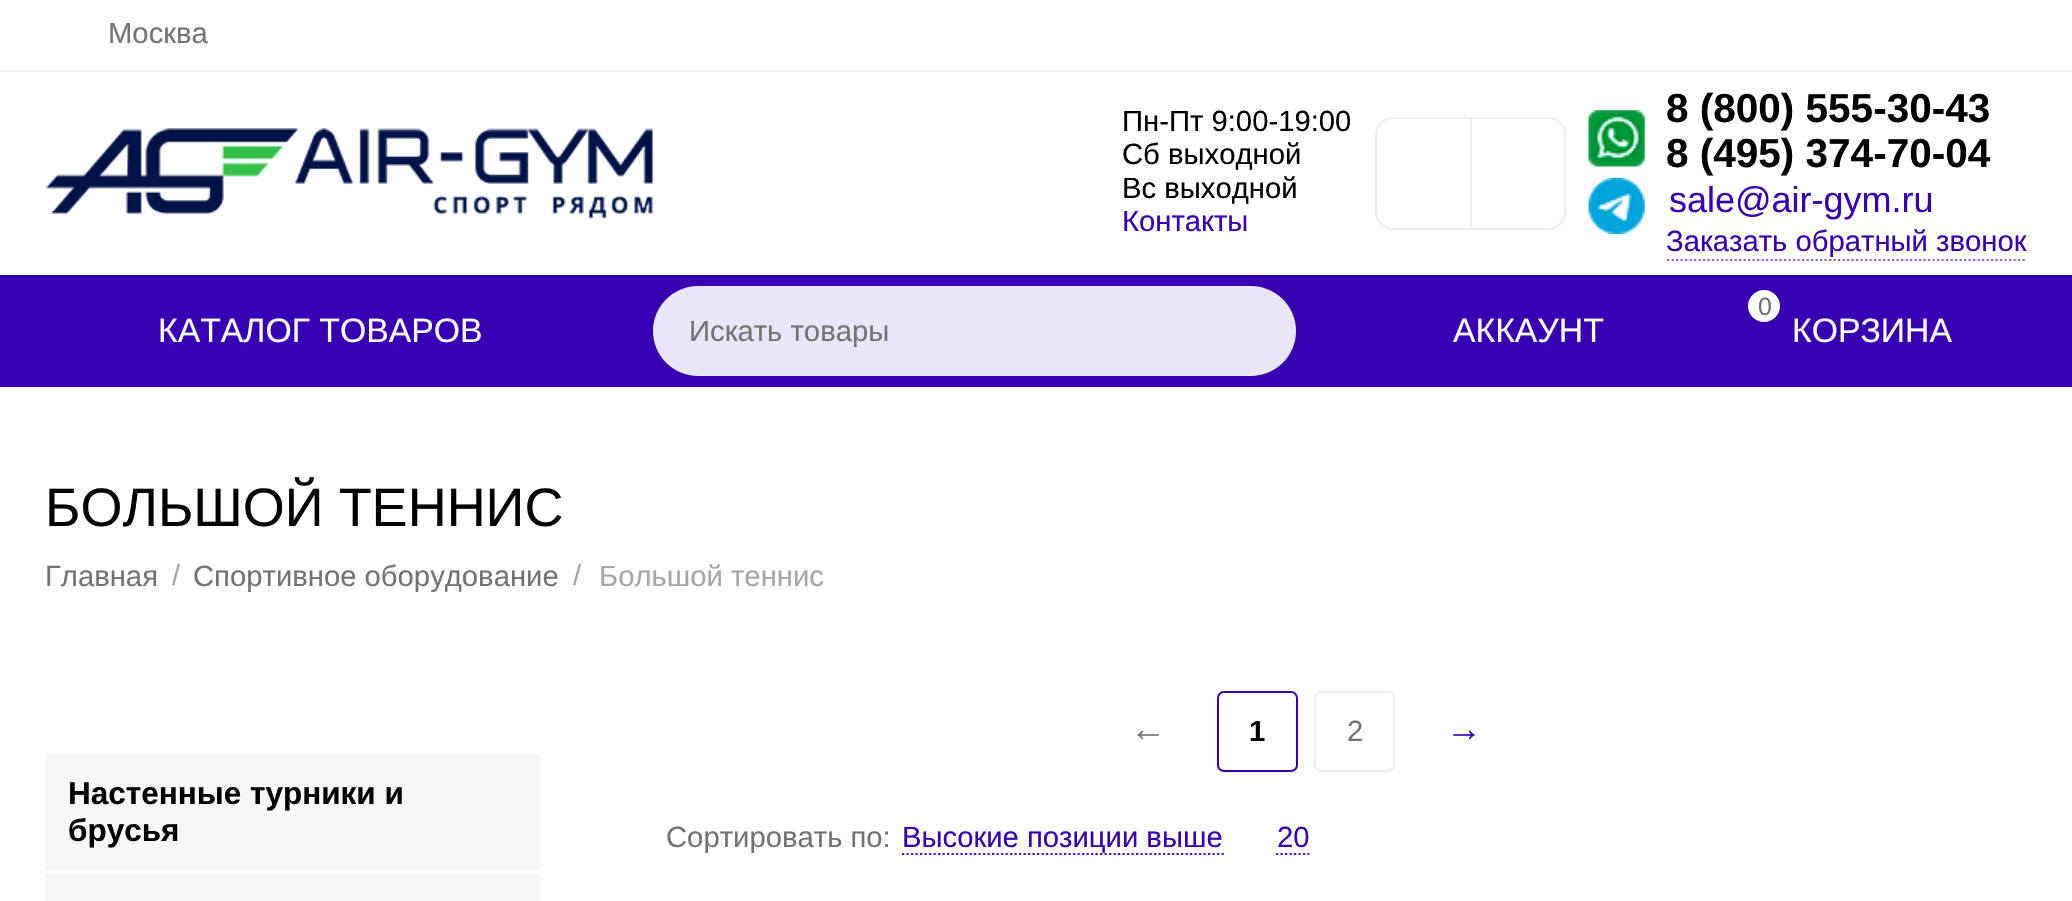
void draw(SkCanvas* c) {
SkPaint p;
p.setAntiAlias(true);
auto F=[&](const char* family, int weight, float size, bool italic = false){SkFontStyle style(weight, SkFontStyle::kNormal_Width,italic ? SkFontStyle::kItalic_Slant : SkFontStyle::kUpright_Slant);SkFont result(fontMgr->matchFamilyStyle(family, style), size);result.setSubpixel(true);return result;};
auto T=[&](const char* s, float x, float y, const SkFont& font){c->drawString(s, x, y, font, p);};
auto R=[&](float x, float y, float w, float h){c->drawRect(SkRect::MakeXYWH(x, y, w, h), p);};
auto Q=[&](float x, float y, float w, float h, float radius){c->drawRoundRect(SkRect::MakeXYWH(x, y, w, h), radius, radius, p);};
auto I=[&](const char* path, float x, float y, float w, float h){auto image = SkImages::DeferredFromEncodedData(SkData::MakeFromFileName(path));c->drawImageRect(image, SkRect::MakeXYWH(x, y, w, h), SkSamplingOptions());};
auto P=[&](const char* data, bool evenOdd = false){SkPath result = *SkParsePath::FromSVGString(data);if (evenOdd) result.setFillType(SkPathFillType::kEvenOdd);return result;};
c->clear(0xffffffff);
p.setColor(0xffeeeeee);
R(0,70,2072,2);
auto f1 = F("Liberation Sans",400,29.25);
p.setColor(0xff737373);
T("Москва",108,43,f1);
I("1.png",45,128,608,91);
p.setColor(0xff000000);
T("Пн-Пт 9:00-19:00",1122,131,f1);
T("Сб выходной",1122,164,f1);
T("Вс выходной",1122,198,f1);
p.setColor(0xff3700b3);
T("Контакты",1122,231,f1);
p.setStroke(true);
p.setStrokeWidth(2);
p.setColor(0xffeeeeee);
c->drawPath(P("M1470 118h78c9.5 0 17 7.5 17 17v77c0 9.5-7.5 17-17 17h-78z"),p);
p.setStroke(false);
p.setColor(0xffffffff);
c->drawPath(P("M1393 118h78v111h-78c-9.5 0-17-7.5-17-17v-77c0-9.5 7.5-17 17-17z"),p);
p.setStroke(true);
p.setColor(0xffeeeeee);
c->drawPath(P("M1393 118h78v111h-78c-9.5 0-17-7.5-17-17v-77c0-9.5 7.5-17 17-17z"),p);
I("2.png",1588,110,57,57);
I("3.png",1588,177,57,57);
auto f2 = F("Liberation Sans",700,40.5);
p.setStroke(false);
p.setColor(0xff000000);
T("8 (800) 555-30-43",1666,122,f2);
T("8 (495) 374-70-04",1666,167,f2);
auto f3 = F("Liberation Sans",400,36);
p.setColor(0xff3700b3);
T("sale@air-gym.ru",1669,212,f3);
T("Заказать обратный звонок",1666,251,f1);
p.setStroke(true);
p.setStrokeWidth(2.2);
p.setColor(0xff8666cc);
p.setPathEffect(SkDashPathEffect::Make({{2.25f,2.25f}}, 0));
c->drawPath(P("M1667 260h360"),p);
p.setPathEffect(nullptr);
p.setStroke(false);
p.setColor(0xff3700b3);
R(0,275,2072,112);
auto f4 = F("Liberation Sans",400,33.75);
p.setColor(0xffffffff);
T("КАТАЛОГ ТОВАРОВ",158,342,f4);
p.setColor(0xffebe6f7);
Q(653,286,643,90,45);
p.setColor(0xff737373);
T("Искать товары",689,341,f1);
p.setColor(0xffffffff);
T("АККАУНТ",1453,342,f4);
c->drawCircle(1764,306,16,p);
auto f5 = F("Liberation Sans",400,25);
p.setColor(0xff737373);
T("0",1758,315,f5);
p.setColor(0xffffffff);
T("КОРЗИНА",1792,342,f4);
auto f6 = F("Liberation Sans",400,54);
p.setColor(0xff000000);
T("БОЛЬШОЙ ТЕННИС",45,526,f6);
p.setColor(0xff737373);
T("Главная",45,586,f1);
p.setColor(0xffa6a6a6);
T("/",172,585,f1);
p.setColor(0xff737373);
T("Спортивное оборудование",193,586,f1);
p.setColor(0xffa6a6a6);
T("/",573,585,f1);
T("Большой теннис",599,586,f1);
p.setColor(0xfff6f6f6);
R(45,754,495,147);
p.setColor(0xffffffff);
R(45,871,495,2);
auto f7 = F("Liberation Sans",700,31.5);
p.setColor(0xff000000);
T("Настенные турники и",68,804,f7);
T("брусья",68,841,f7);
p.setColor(0xff737373);
T("←",1130,741,f3);
p.setStroke(true);
p.setStrokeWidth(2);
p.setColor(0xff3700b3);
c->drawRoundRect(SkRect::MakeXYWH(1218,692,79,79),6,6,p);
auto f8 = F("Liberation Sans",700,29.25);
p.setStroke(false);
p.setColor(0xff000000);
T("1",1249,741,f8);
p.setStroke(true);
p.setColor(0xffeeeeee);
c->drawRoundRect(SkRect::MakeXYWH(1315,692,79,79),6,6,p);
p.setStroke(false);
p.setColor(0xff737373);
T("2",1347,741,f1);
p.setColor(0xff3700b3);
T("→",1446,741,f3);
p.setColor(0xff737373);
T("Сортировать по:",666,847,f1);
p.setStroke(true);
p.setStrokeWidth(2.2);
p.setColor(0xff4b0cdb);
p.setPathEffect(SkDashPathEffect::Make({{2.25f,2.25f}}, 0));
c->drawPath(P("M902 854h322"),p);
p.setPathEffect(nullptr);
p.setStroke(false);
p.setColor(0xff3700b3);
T("Высокие позиции выше",902,847,f1);
p.setStroke(true);
p.setColor(0xff4b0cdb);
p.setPathEffect(SkDashPathEffect::Make({{2.25f,2.25f}}, 0));
c->drawPath(P("M1276 854h33.5"),p);
p.setPathEffect(nullptr);
p.setStroke(false);
p.setColor(0xff3700b3);
T("20",1277,847,f1);
}
